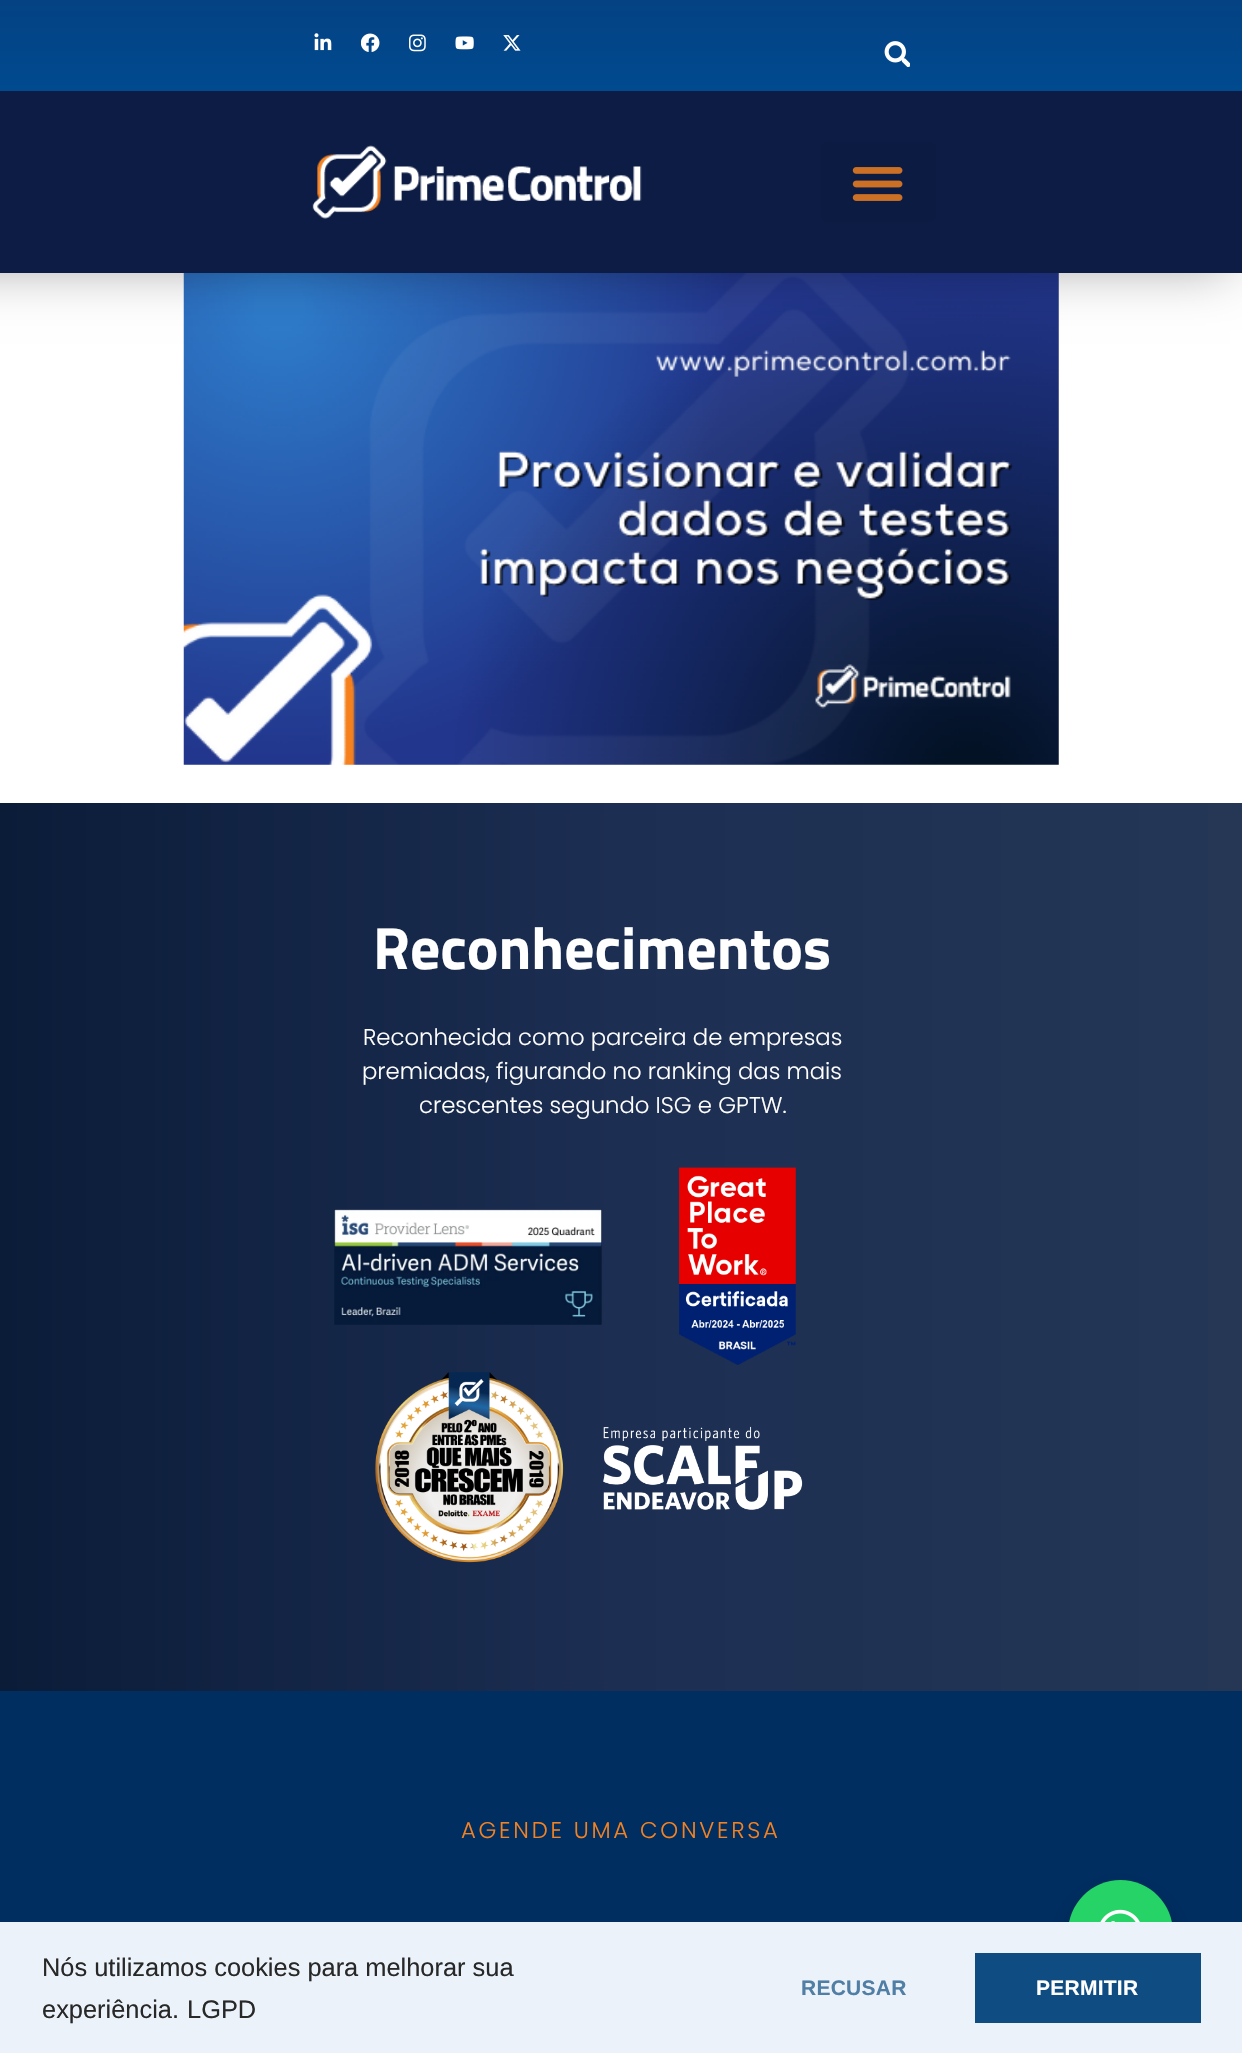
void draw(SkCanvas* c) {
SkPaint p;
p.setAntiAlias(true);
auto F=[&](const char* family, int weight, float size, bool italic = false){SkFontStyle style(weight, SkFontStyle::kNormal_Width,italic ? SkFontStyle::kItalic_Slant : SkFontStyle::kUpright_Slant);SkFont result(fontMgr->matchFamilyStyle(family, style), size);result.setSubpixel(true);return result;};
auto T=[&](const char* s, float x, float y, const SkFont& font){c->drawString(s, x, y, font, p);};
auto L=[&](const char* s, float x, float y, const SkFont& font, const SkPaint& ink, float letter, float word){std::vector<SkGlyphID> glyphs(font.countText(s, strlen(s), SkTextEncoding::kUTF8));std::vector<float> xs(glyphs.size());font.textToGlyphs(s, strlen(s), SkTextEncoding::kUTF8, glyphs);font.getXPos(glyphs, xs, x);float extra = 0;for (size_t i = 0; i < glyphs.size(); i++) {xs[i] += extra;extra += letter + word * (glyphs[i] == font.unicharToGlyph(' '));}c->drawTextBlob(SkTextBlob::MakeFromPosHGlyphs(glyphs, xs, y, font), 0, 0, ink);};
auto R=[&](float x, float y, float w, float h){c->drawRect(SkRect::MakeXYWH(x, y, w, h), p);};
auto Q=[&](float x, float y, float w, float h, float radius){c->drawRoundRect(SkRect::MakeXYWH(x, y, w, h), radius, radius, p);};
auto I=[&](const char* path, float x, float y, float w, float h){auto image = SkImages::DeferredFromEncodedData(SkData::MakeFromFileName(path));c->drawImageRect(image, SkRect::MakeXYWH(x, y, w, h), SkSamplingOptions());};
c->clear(0xffffffff);
I("9.png",183,273,876,492);
p.setColor(0x59000000);
p.setMaskFilter(SkMaskFilter::MakeBlur(kNormal_SkBlurStyle, 25.5));
c->drawRect(SkRect::MakeXYWH(-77,19,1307,249),p);
p.setMaskFilter(nullptr);
p.setColor(0xff0d1c44);
R(0,91,1242,182);
I("1.png",312,145,330,74);
p.setColor(0xff0c1b41);
Q(821,142,115,80,5);
I("2.png",852,167,51,34);
{
const SkColor colors[] = {0xff044283,0xff004a8f};
const float stops[] = {0,1};
const SkPoint ends[] = {{621,0}, {621,91}};
p.setShader(SkGradientShader::MakeLinear(ends, colors, stops, 2, SkTileMode::kClamp));
p.setAlpha(255);
}
R(0,0,1242,91);
I("3.png",314,33,18,18);
I("4.png",361,33,19,19);
I("5.png",409,34,17,18);
I("6.png",455,36,19,14);
I("7.png",503,35,18,16);
I("8.png",884,41,26,26);
{
const SkColor colors[] = {0xff0b1c39,0xff1c2e52,0xff253755};
const float stops[] = {0,.5,1};
const SkPoint ends[] = {{0,1247}, {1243,1247}};
p.setShader(SkGradientShader::MakeLinear(ends, colors, stops, 3, SkTileMode::kClamp));
p.setAlpha(255);
}
R(0,803,1242,888);
auto f1 = F("Titillium Web",700,59.5);
p.setShader(nullptr);
p.setColor(0xffffffff);
T("Reconhecimentos",373,969,f1);
auto f2 = F("Poppins",300,22.75);
T("Reconhecida como parceira de empresas",363,1045,f2);
T("premiadas, figurando no ranking das mais",362,1079,f2);
T("crescentes segundo ISG e GPTW.",419,1113,f2);
I("10.png",334,1209,268,116);
I("11.png",679,1167,117,198);
I("12.png",375,1372,189,191);
I("13.png",603,1426,200,84);
p.setColor(0xff002e61);
R(0,1691,1242,231);
p.setColor(0xfff58220);
L("AGENDE UMA CONVERSA",461,1838,f2,p,2.75,0);
p.setColor(0x33000000);
p.setMaskFilter(SkMaskFilter::MakeBlur(kNormal_SkBlurStyle, 12));
c->drawRoundRect(SkRect::MakeXYWH(1068,1892,105,105),52.5,52.5,p);
p.setMaskFilter(nullptr);
p.setColor(0xff25d366);
c->drawCircle(1120.5,1932.5,52.5,p);
I("14.png",1100,1909,40,13);
p.setColor(0xffebf2fa);
R(0,1922,1242,131);
auto f3 = F("Liberation Sans",400,25.4);
p.setColor(0xff282828);
T("Nós utilizamos cookies para melhorar sua",42,1976,f3);
T("experiência.",42,2018,f3);
T("LGPD",187,2018,f3);
auto f4 = F("Liberation Sans",700,21);
p.setColor(0xff517ea5);
L("RECUSAR",801,1995,f4,p,.25,0);
p.setColor(0xff0f4c81);
R(975,1953,226,70);
p.setColor(0xffffffff);
L("PERMITIR",1036,1995,f4,p,.25,0);
}
